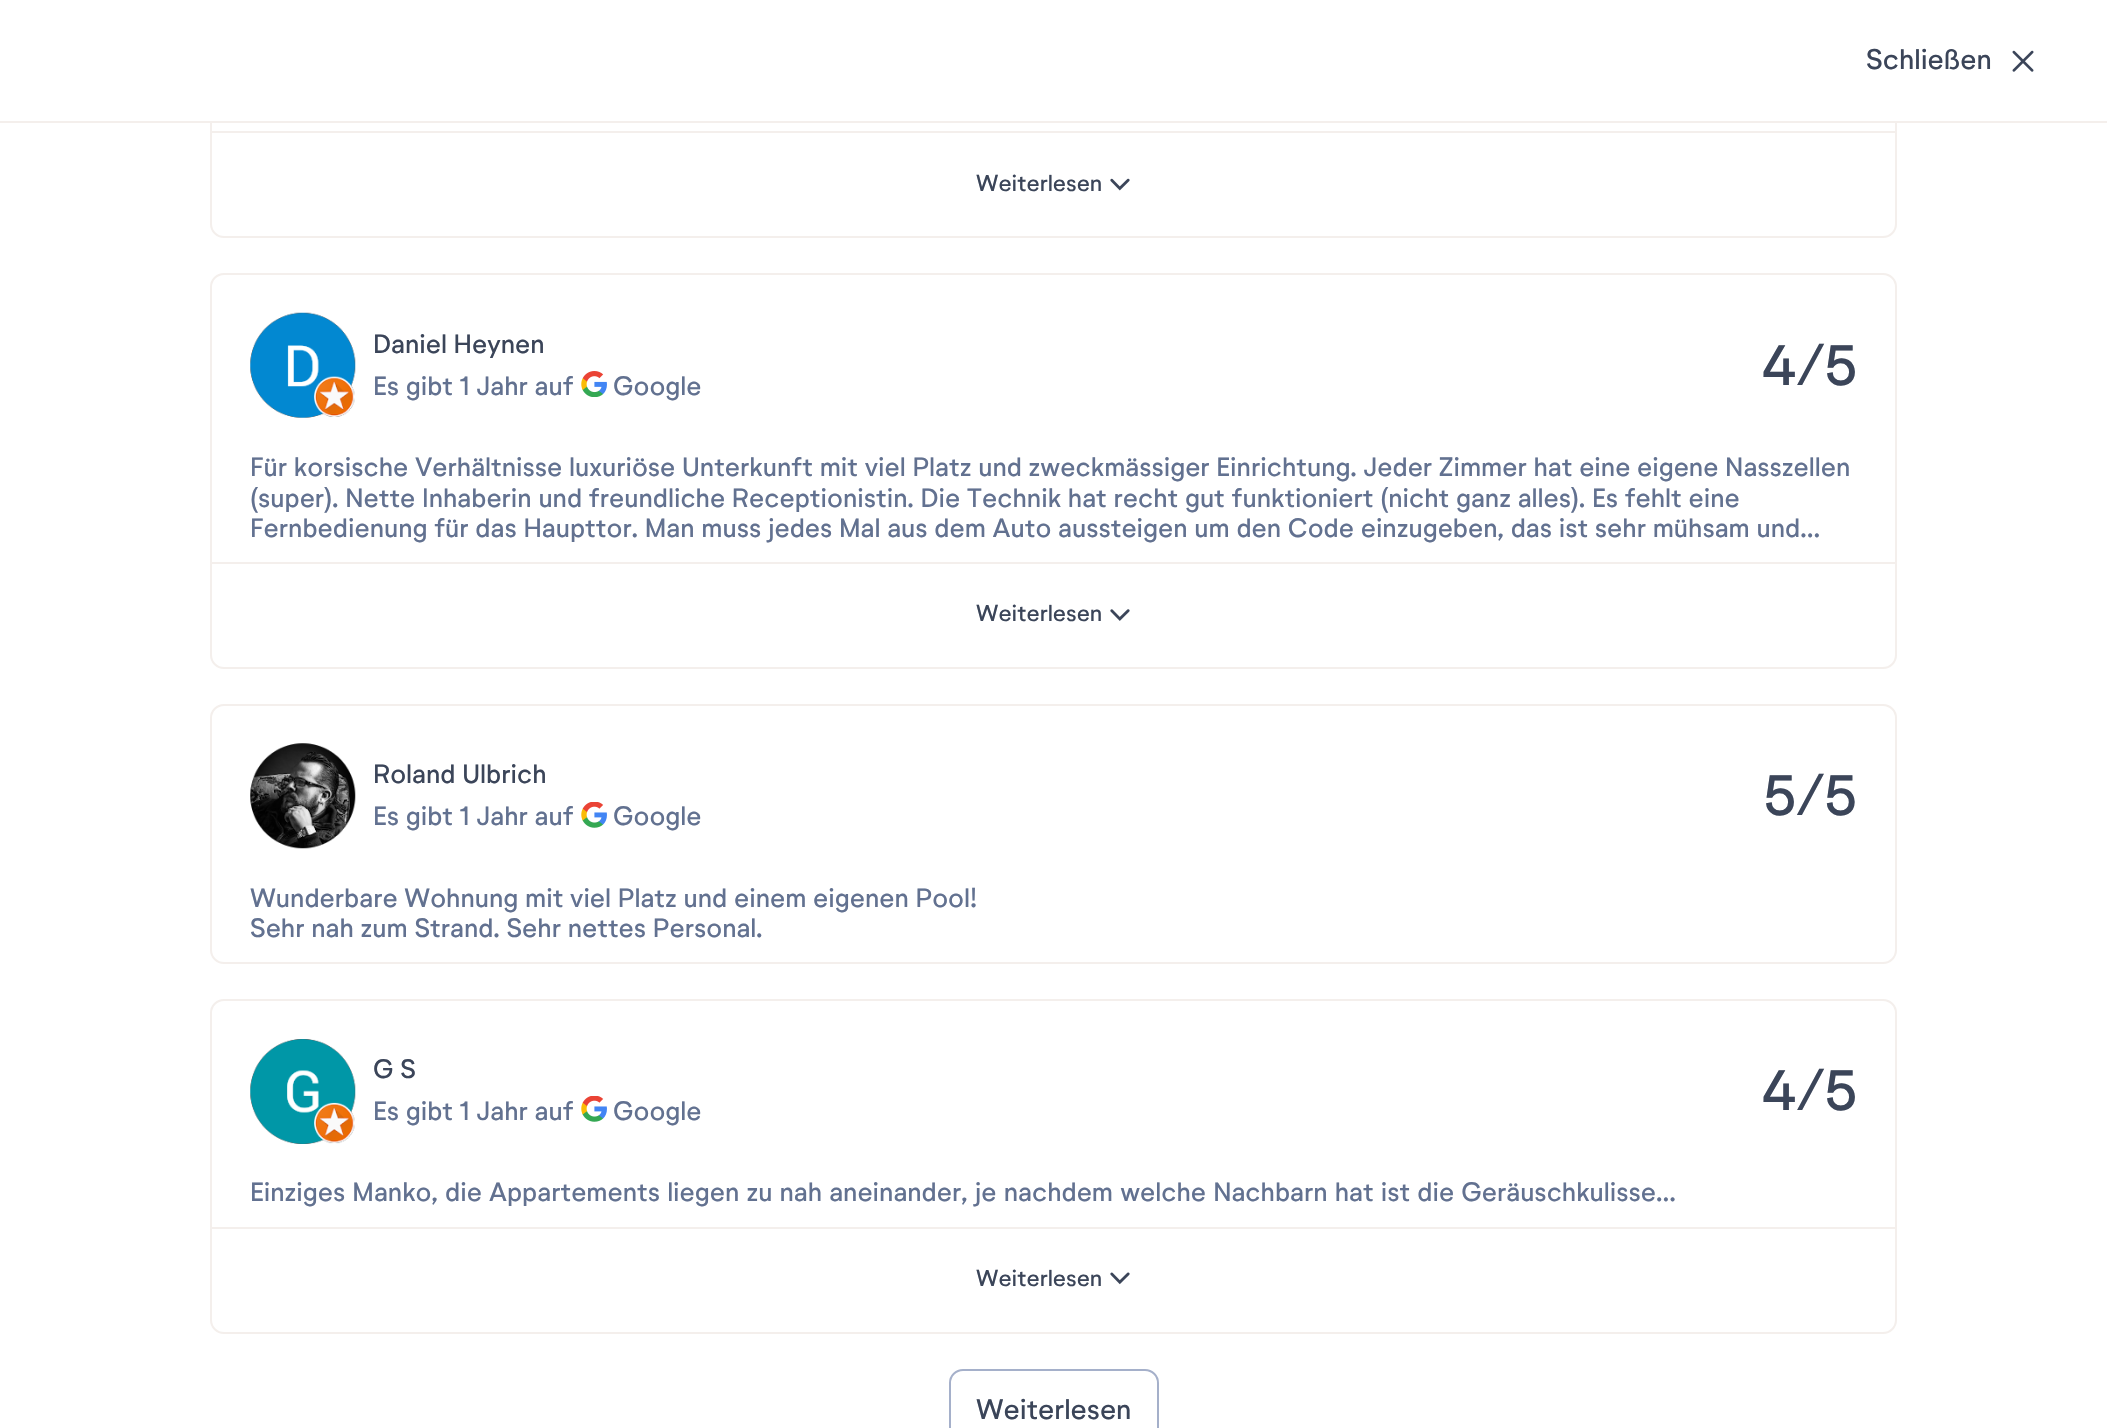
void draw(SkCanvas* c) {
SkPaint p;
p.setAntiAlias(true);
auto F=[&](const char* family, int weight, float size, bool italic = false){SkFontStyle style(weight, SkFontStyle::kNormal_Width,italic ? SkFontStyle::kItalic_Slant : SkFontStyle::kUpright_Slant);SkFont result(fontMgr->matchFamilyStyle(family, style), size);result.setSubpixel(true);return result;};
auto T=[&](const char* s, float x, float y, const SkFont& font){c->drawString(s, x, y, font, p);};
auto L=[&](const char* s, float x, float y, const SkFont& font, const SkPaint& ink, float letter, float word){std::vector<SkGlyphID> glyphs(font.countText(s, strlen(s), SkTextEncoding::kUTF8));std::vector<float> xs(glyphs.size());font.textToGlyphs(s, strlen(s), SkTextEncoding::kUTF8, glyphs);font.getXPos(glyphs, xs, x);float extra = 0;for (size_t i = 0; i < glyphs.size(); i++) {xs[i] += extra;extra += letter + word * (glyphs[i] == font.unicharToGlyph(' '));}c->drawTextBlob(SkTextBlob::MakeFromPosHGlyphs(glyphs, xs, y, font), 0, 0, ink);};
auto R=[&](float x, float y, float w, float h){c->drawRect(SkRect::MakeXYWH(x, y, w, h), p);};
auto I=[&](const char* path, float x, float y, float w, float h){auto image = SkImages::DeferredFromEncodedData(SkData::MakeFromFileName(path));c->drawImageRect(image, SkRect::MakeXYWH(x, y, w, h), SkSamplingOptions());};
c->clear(0xffffffff);
p.setStroke(true);
p.setStrokeWidth(2);
p.setColor(0xfff4efec);
c->drawRoundRect(SkRect::MakeXYWH(211,-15,1685,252),13,13,p);
p.setStroke(false);
p.setColor(0xffffffff);
R(210,0,1687,121);
p.setColor(0xfff4efec);
R(0,121,2107,2);
auto f1 = F("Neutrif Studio",400,28);
p.setColor(0xff3b4559);
T("Schließen",1866,69,f1);
I("1.png",2012,50,22,22);
p.setColor(0xfff4efec);
R(212,131,1683,2);
auto f2 = F("Neutrif Studio",400,22.75);
p.setColor(0xff3b4559);
T("Weiterlesen",976,191,f2);
I("2.png",1110,178,20,13);
p.setStroke(true);
p.setColor(0xfff4efec);
c->drawRoundRect(SkRect::MakeXYWH(211,274,1685,394),13,13,p);
I("3.png",250,312,106,106);
auto f3 = F("Neutrif Studio",400,26.25);
p.setStroke(false);
p.setColor(0xff3b4559);
T("Daniel Heynen",373,353,f3);
p.setColor(0xff627190);
T("Es gibt 1 Jahr auf",373,395,f3);
I("4.png",581,371,26,26);
T("Google",613,395,f3);
auto f4 = F("Neutrif Studio",400,56);
p.setColor(0xff3b4559);
T("4/5",1762,385,f4);
p.setColor(0xff627190);
T("Für korsische Verhältnisse luxuriöse Unterkunft mit viel Platz und zweckmässiger Einrichtung. Jeder Zimmer hat eine eigene Nasszellen",250,476,f3);
T("(super). Nette Inhaberin und freundliche Receptionistin. Die Technik hat recht gut funktioniert (nicht ganz alles). Es fehlt eine",250,507,f3);
T("Fernbedienung für das Haupttor. Man muss jedes Mal aus dem Auto aussteigen um den Code einzugeben, das ist sehr mühsam und…",250,537,f3);
p.setColor(0xfff4efec);
R(212,562,1683,2);
p.setColor(0xff3b4559);
T("Weiterlesen",976,621,f2);
I("5.png",1110,609,20,12);
p.setStroke(true);
p.setColor(0xfff4efec);
c->drawRoundRect(SkRect::MakeXYWH(211,705,1685,258),13,13,p);
I("6.png",250,743,106,106);
p.setStroke(false);
p.setColor(0xff3b4559);
T("Roland Ulbrich",373,783,f3);
p.setColor(0xff627190);
T("Es gibt 1 Jahr auf",373,825,f3);
I("7.png",581,802,26,26);
T("Google",613,825,f3);
p.setColor(0xff3b4559);
T("5/5",1764,815,f4);
p.setColor(0xff627190);
T("Wunderbare Wohnung mit viel Platz und einem eigenen Pool!",250,907,f3);
T("Sehr nah zum Strand. Sehr nettes Personal.",250,937,f3);
p.setStroke(true);
p.setColor(0xfff4efec);
c->drawRoundRect(SkRect::MakeXYWH(211,1000,1685,333),13,13,p);
I("8.png",250,1039,106,105);
p.setStroke(false);
p.setColor(0xff3b4559);
T("G S",373,1078,f3);
p.setColor(0xff627190);
T("Es gibt 1 Jahr auf",373,1120,f3);
I("7.png",581,1096,26,26);
T("Google",613,1120,f3);
p.setColor(0xff3b4559);
T("4/5",1762,1110,f4);
p.setColor(0xff627190);
L("Einziges Manko, die Appartements liegen zu nah aneinander, je nachdem welche Nachbarn hat ist die Geräuschkulisse…",250,1201,f3,p,0,.4);
p.setColor(0xfff4efec);
R(212,1227,1683,2);
p.setColor(0xff3b4559);
T("Weiterlesen",976,1286,f2);
I("9.png",1110,1272,20,13);
p.setStroke(true);
p.setColor(0xffa5b0ca);
c->drawRoundRect(SkRect::MakeXYWH(950,1370,208,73),13,13,p);
p.setStroke(false);
p.setColor(0xff3b4559);
T("Weiterlesen",976,1419,f1);
}
